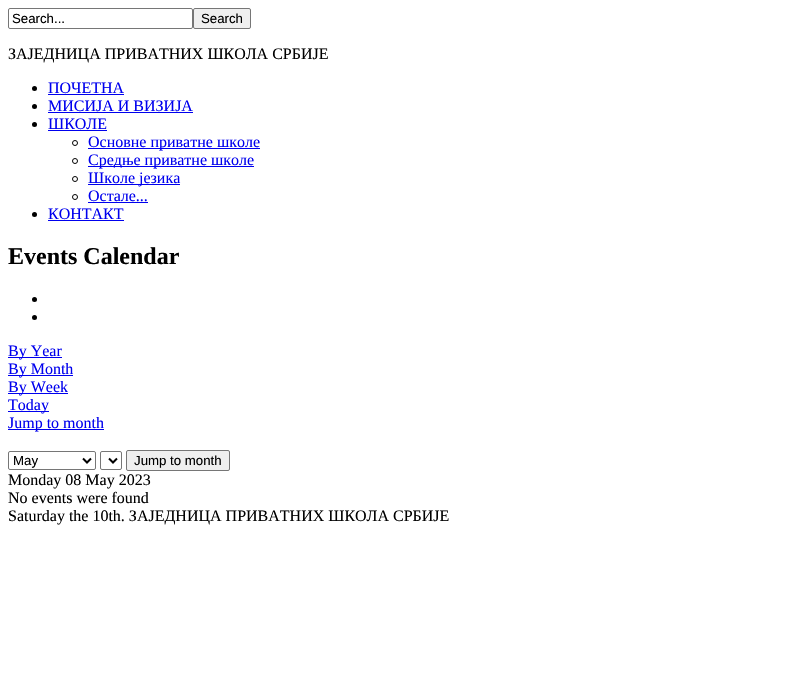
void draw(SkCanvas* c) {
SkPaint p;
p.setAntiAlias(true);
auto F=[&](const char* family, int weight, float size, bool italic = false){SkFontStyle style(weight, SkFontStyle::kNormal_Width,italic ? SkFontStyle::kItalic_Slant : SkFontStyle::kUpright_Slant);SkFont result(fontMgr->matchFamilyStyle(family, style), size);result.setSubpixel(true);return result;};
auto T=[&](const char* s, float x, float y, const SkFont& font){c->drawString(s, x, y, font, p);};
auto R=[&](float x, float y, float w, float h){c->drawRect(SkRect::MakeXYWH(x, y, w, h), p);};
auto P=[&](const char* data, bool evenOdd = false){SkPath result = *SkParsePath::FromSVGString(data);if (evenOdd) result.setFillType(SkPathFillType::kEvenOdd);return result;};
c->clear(0xffffffff);
p.setStroke(true);
p.setStrokeWidth(1);
p.setColor(0xff767676);
c->drawRoundRect(SkRect::MakeXYWH(8.5,8.5,184,20),1.5,1.5,p);
auto f1 = F("Liberation Sans",400,13.25);
p.setStroke(false);
p.setColor(0xff000000);
T("Search...",12,23,f1);
p.setColor(0xffefefef);
c->drawRoundRect(SkRect::MakeXYWH(193.5,8.5,57,20),1.5,1.5,p);
p.setStroke(true);
p.setColor(0xff767676);
c->drawRoundRect(SkRect::MakeXYWH(193.5,8.5,57,20),1.5,1.5,p);
p.setStroke(false);
p.setColor(0xff000000);
T("Search",201,23,f1);
auto f2 = F("Liberation Serif",400,16);
T("ЗАЈЕДНИЦА ПРИВАТНИХ ШКОЛА СРБИЈЕ",8,59,f2);
c->drawCircle(34.5,88.5,2.5,p);
p.setColor(0xff0000ee);
T("ПОЧЕТНА",48,93,f2);
R(48,94,76,1);
p.setColor(0xff000000);
c->drawCircle(34.5,106.5,2.5,p);
p.setColor(0xff0000ee);
T("МИСИЈА И ВИЗИЈА",48,111,f2);
R(48,112,145,1);
p.setColor(0xff000000);
c->drawCircle(34.5,124.5,2.5,p);
p.setColor(0xff0000ee);
T("ШКОЛЕ",48,129,f2);
R(48,130,59,1);
p.setStroke(true);
p.setColor(0xff000000);
c->drawCircle(75,143,2.5,p);
p.setStroke(false);
p.setColor(0xff0000ee);
R(88,148,172,1);
T("Основне приватне школе",88,147,f2);
p.setStroke(true);
p.setColor(0xff000000);
c->drawCircle(75,161,2.5,p);
p.setStroke(false);
p.setColor(0xff0000ee);
R(88,166,166,1);
T("Средње приватне школе",88,165,f2);
p.setStroke(true);
p.setColor(0xff000000);
c->drawCircle(75,179,2.5,p);
p.setStroke(false);
p.setColor(0xff0000ee);
R(88,184,92,1);
T("Школе језика",88,183,f2);
p.setStroke(true);
p.setColor(0xff000000);
c->drawCircle(75,197,2.5,p);
p.setStroke(false);
p.setColor(0xff0000ee);
T("Остале...",88,201,f2);
R(88,202,60,1);
p.setColor(0xff000000);
c->drawCircle(34.5,214.5,2.5,p);
p.setColor(0xff0000ee);
T("КОНТАКТ",48,219,f2);
R(48,220,76,1);
auto f3 = F("Liberation Serif",700,24);
p.setColor(0xff000000);
T("Events Calendar",8,264,f3);
c->drawCircle(34.5,299.5,2.5,p);
c->drawCircle(34.5,317.5,2.5,p);
p.setColor(0xff0000ee);
R(8,357,54,1);
T("By Year",8,356,f2);
R(8,375,65,1);
T("By Month",8,374,f2);
R(8,393,60,1);
T("By Week",8,392,f2);
R(8,411,41,1);
T("Today",8,410,f2);
R(8,429,96,1);
T("Jump to month",8,428,f2);
p.setStroke(true);
p.setColor(0xff767676);
c->drawRoundRect(SkRect::MakeXYWH(8.5,451.5,87,18),1.5,1.5,p);
p.setStrokeWidth(2);
p.setColor(0xff000000);
c->drawPath(P("M83 458.5l4 4l4-4"),p);
p.setStroke(false);
T("May",13,465,f1);
p.setStroke(true);
p.setStrokeWidth(1);
p.setColor(0xff767676);
c->drawRoundRect(SkRect::MakeXYWH(100.5,451.5,21,18),1.5,1.5,p);
p.setStrokeWidth(2);
p.setColor(0xff000000);
c->drawPath(P("M109 458.5l4 4l4-4"),p);
p.setStroke(false);
p.setColor(0xffefefef);
c->drawRoundRect(SkRect::MakeXYWH(126.5,450.5,103,20),1.5,1.5,p);
p.setStroke(true);
p.setStrokeWidth(1);
p.setColor(0xff767676);
c->drawRoundRect(SkRect::MakeXYWH(126.5,450.5,103,20),1.5,1.5,p);
p.setStroke(false);
p.setColor(0xff000000);
T("Jump to month",134,465,f1);
T("Monday 08 May 2023",8,485,f2);
T("No events were found",8,503,f2);
T("Saturday the 10th. ЗАЈЕДНИЦА ПРИВАТНИХ ШКОЛА СРБИЈЕ",8,521,f2);
}
